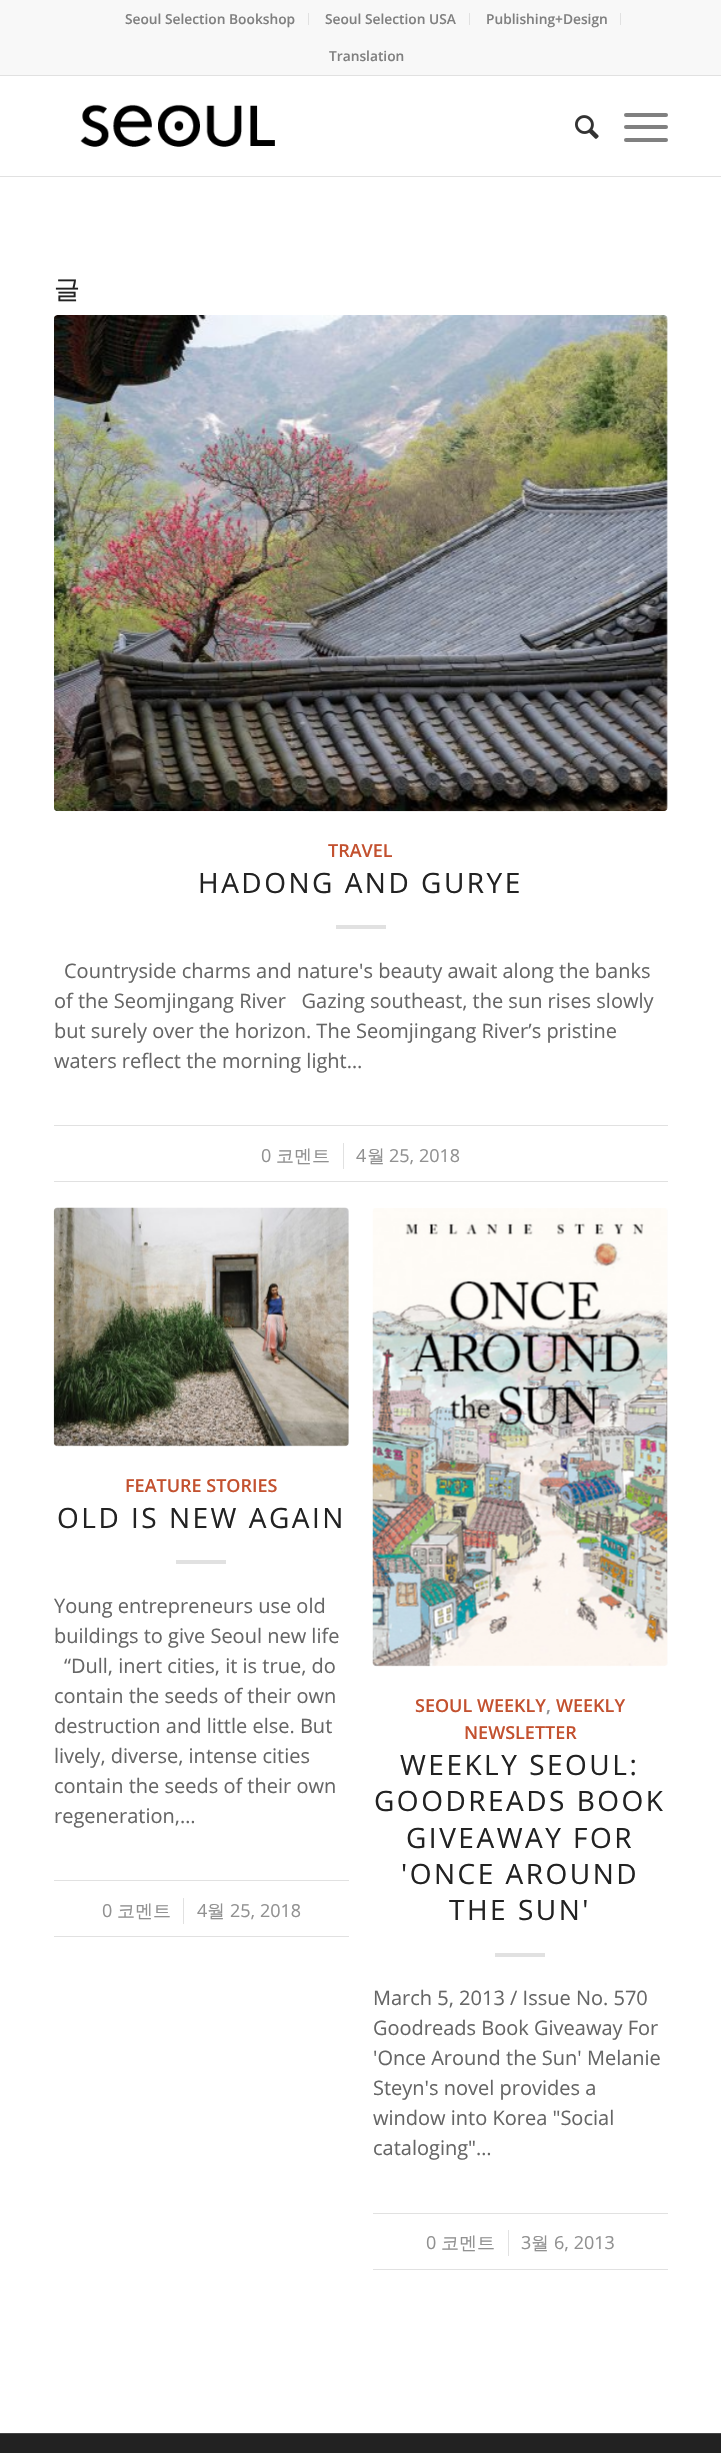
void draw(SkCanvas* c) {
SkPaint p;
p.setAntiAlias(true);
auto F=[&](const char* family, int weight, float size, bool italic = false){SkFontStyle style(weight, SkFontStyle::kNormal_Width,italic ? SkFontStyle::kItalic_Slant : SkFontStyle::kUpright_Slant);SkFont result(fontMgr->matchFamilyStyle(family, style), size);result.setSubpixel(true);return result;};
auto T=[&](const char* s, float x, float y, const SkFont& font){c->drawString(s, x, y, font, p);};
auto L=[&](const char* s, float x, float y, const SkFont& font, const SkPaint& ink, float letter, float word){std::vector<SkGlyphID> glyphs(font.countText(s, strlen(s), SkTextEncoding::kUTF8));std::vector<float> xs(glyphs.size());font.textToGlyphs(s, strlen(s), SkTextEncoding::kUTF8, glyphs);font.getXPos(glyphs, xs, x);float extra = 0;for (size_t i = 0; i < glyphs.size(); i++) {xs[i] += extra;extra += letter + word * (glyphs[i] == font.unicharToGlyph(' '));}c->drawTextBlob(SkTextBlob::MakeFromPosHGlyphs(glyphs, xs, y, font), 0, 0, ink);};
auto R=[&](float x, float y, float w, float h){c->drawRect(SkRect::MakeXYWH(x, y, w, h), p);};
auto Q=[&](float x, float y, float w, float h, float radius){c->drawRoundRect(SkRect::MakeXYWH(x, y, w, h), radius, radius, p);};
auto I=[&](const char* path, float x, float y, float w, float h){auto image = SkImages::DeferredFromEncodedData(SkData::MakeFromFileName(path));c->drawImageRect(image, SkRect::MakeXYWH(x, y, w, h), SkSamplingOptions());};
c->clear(0xffffffff);
p.setColor(0xfff8f8f8);
R(0,0,721,75);
p.setColor(0xffe1e1e1);
R(0,75,721,1);
R(308,13,1,12);
auto f1 = F("Open Sans",600,13.75);
p.setColor(0xff808080);
T("Seoul Selection Bookshop",125,24,f1);
p.setColor(0xffe1e1e1);
R(469,13,1,12);
p.setColor(0xff808080);
T("Seoul Selection USA",325,24,f1);
p.setColor(0xffe1e1e1);
R(620,13,1,12);
p.setColor(0xff808080);
T("Publishing+Design",486,24,f1);
T("Translation",329,61,f1);
p.setColor(0xffe1e1e1);
R(0,176,721,1);
I("1.png",80,104,195,43);
I("2.png",575,115,24,24);
p.setColor(0xff808080);
Q(624,125,44,4,2);
Q(624,113,44,4,2);
Q(624,138,44,4,2);
auto f2 = F("WenQuanYi Zen Hei",500,26);
p.setColor(0xff222222);
T("글",54,298,f2);
p.setColor(0xfffcfcfc);
Q(54,315,614,496,4);
I("3.png",54,315,614,497);
auto f3 = F("Open Sans",600,18);
p.setColor(0xffc3512f);
T("TRAVEL",328,857,f3);
auto f4 = F("Open Sans",400,28);
p.setColor(0xff222222);
L("HADONG AND GURYE",198,893,f4,p,2.5,0);
p.setColor(0xffe1e1e1);
R(336,925,50,4);
auto f5 = F("Open Sans",400,20);
p.setColor(0xff666666);
T("Countryside charms and nature's beauty await along the banks",64,978,f5);
T("of the Seomjingang River   Gazing southeast, the sun rises slowly",54,1008,f5);
T("but surely over the horizon. The Seomjingang River’s pristine",54,1038,f5);
T("waters reflect the morning light…",54,1068,f5);
p.setColor(0xffe1e1e1);
R(54,1125,614,1);
R(54,1181,614,1);
auto f6 = F("Open Sans",400,18);
p.setColor(0xff919191);
T("0",261,1162,f6);
auto f7 = F("WenQuanYi Zen Hei",500,18);
T("코멘트",276,1162,f7);
p.setColor(0xffe1e1e1);
R(343,1143,1,26);
p.setColor(0xff919191);
T("4",356,1162,f6);
T("월",367,1162,f7);
T("25, 2018",389,1162,f6);
p.setColor(0xfffcfcfc);
Q(54,1208,295,238,4);
I("4.png",53,1207,296,240);
p.setColor(0xffc3512f);
T("FEATURE STORIES",125,1492,f3);
p.setColor(0xff222222);
L("OLD IS NEW AGAIN",57,1528,f4,p,2.5,0);
p.setColor(0xffe1e1e1);
R(176,1560,50,4);
p.setColor(0xff666666);
T("Young entrepreneurs use old",54,1613,f5);
T("buildings to give Seoul new life",54,1643,f5);
T("“Dull, inert cities, it is true, do",64,1673,f5);
T("contain the seeds of their own",54,1703,f5);
T("destruction and little else. But",54,1733,f5);
T("lively, diverse, intense cities",54,1763,f5);
T("contain the seeds of their own",54,1793,f5);
T("regeneration,…",54,1823,f5);
p.setColor(0xffe1e1e1);
R(54,1880,295,1);
R(54,1936,295,1);
p.setColor(0xff919191);
T("0",102,1917,f6);
T("코멘트",117,1917,f7);
p.setColor(0xffe1e1e1);
R(183,1898,1,26);
p.setColor(0xff919191);
T("4",197,1917,f6);
T("월",207,1917,f7);
T("25, 2018",230,1917,f6);
p.setColor(0xfffcfcfc);
Q(373,1208,295,458,4);
I("5.png",372,1208,296,459);
p.setColor(0xffc3512f);
T("SEOUL WEEKLY",415,1712,f3);
p.setColor(0xff919191);
T(",",546,1712,f3);
p.setColor(0xffc3512f);
T("WEEKLY",556,1712,f3);
T("NEWSLETTER",464,1739,f3);
p.setColor(0xff222222);
L("WEEKLY SEOUL:",400,1775,f4,p,2.5,0);
L("GOODREADS BOOK",374,1811,f4,p,2.5,0);
L("GIVEAWAY FOR",406,1848,f4,p,2.5,0);
L("'ONCE AROUND",401,1884,f4,p,2.5,0);
L("THE SUN'",449,1920,f4,p,2.5,0);
p.setColor(0xffe1e1e1);
R(495,1953,50,4);
p.setColor(0xff666666);
T("March 5, 2013 / Issue No. 570",373,2005,f5);
T("Goodreads Book Giveaway For",373,2035,f5);
T("'Once Around the Sun' Melanie",373,2065,f5);
T("Steyn's novel provides a",373,2095,f5);
T("window into Korea \"Social",373,2125,f5);
T("cataloging\"…",373,2155,f5);
p.setColor(0xffe1e1e1);
R(373,2213,295,1);
R(373,2269,295,1);
p.setColor(0xff919191);
T("0",426,2249,f6);
T("코멘트",441,2249,f7);
p.setColor(0xffe1e1e1);
R(508,2230,1,26);
p.setColor(0xff919191);
T("3",521,2249,f6);
T("월",531,2249,f7);
T("6, 2013",554,2249,f6);
p.setColor(0xff222222);
R(0,2434,721,19);
p.setColor(0xff444444);
R(0,2433,721,1);
}
